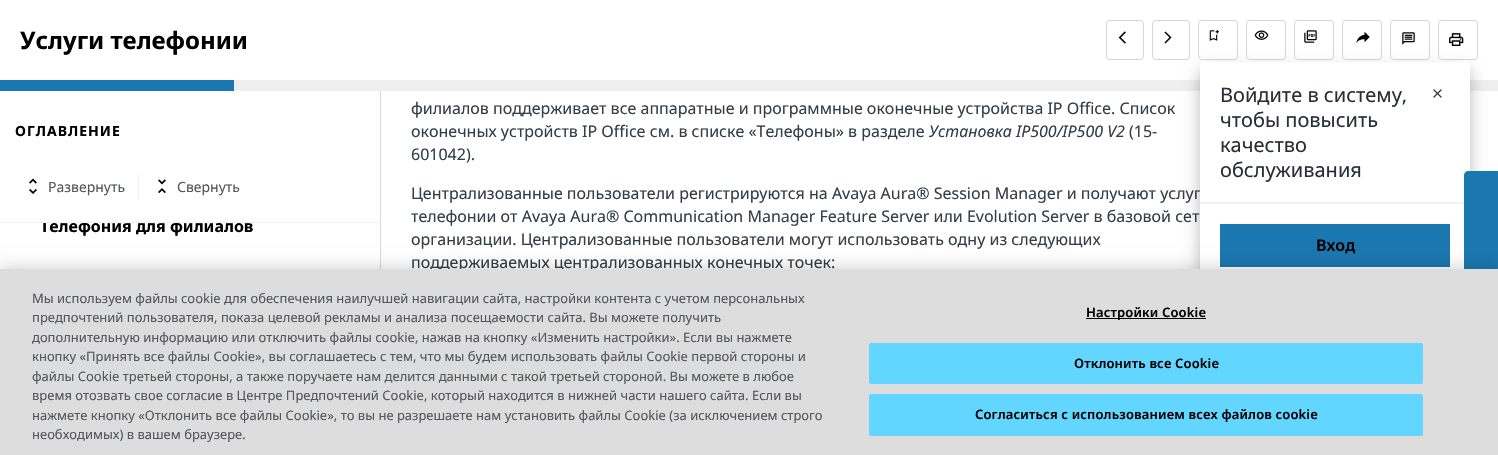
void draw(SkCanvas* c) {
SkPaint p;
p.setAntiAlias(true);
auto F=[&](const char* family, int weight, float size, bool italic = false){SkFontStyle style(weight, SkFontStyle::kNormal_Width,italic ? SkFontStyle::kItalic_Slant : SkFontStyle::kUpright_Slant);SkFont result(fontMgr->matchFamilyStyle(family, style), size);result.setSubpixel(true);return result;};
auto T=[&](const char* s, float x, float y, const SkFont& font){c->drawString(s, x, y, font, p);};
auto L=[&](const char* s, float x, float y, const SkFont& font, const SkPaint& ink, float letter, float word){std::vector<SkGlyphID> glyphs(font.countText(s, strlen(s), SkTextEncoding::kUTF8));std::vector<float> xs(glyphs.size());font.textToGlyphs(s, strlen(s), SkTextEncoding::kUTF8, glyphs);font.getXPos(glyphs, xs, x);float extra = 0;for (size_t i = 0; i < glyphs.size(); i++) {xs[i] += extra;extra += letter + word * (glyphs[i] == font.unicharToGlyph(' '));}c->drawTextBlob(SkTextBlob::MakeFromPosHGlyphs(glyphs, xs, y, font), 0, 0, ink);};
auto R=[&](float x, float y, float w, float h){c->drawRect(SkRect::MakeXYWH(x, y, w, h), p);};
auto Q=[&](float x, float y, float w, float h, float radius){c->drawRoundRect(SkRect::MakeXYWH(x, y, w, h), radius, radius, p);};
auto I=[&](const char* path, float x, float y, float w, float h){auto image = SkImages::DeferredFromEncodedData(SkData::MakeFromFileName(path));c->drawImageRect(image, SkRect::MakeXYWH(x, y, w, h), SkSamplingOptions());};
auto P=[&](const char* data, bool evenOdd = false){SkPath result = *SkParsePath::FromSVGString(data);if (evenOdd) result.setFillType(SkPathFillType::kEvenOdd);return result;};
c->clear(0xffffffff);
auto f1 = F("Noto Sans",700,24);
p.setColor(0xff000000);
T("Услуги телефонии",20,49,f1);
p.setStroke(true);
p.setStrokeWidth(1);
p.setColor(0xffd6d6d6);
c->drawRoundRect(SkRect::MakeXYWH(1106.5,20.5,37,39),3.5,3.5,p);
I("1.png",1118,31,8,13);
c->drawRoundRect(SkRect::MakeXYWH(1152.5,20.5,37,39),3.5,3.5,p);
I("2.png",1164,31,8,13);
c->drawRoundRect(SkRect::MakeXYWH(1198.5,20.5,39,39),3.5,3.5,p);
I("3.png",1209,30,10,11);
c->drawRoundRect(SkRect::MakeXYWH(1246.5,20.5,39,39),3.5,3.5,p);
I("4.png",1254,30,15,10);
c->drawRoundRect(SkRect::MakeXYWH(1294.5,20.5,39,39),3.5,3.5,p);
I("5.png",1304,30,13,13);
c->drawRoundRect(SkRect::MakeXYWH(1342.5,20.5,39,39),3.5,3.5,p);
I("6.png",1356,31,14,12);
c->drawRoundRect(SkRect::MakeXYWH(1390.5,20.5,39,39),3.5,3.5,p);
I("7.png",1402,32,13,13);
c->drawRoundRect(SkRect::MakeXYWH(1438.5,20.5,39,39),3.5,3.5,p);
I("8.png",1449,33,15,13);
p.setStroke(false);
p.setColor(0xff1b77af);
R(0,80,234,11);
p.setColor(0xffefefef);
R(234,80,1264,11);
p.setColor(0xffd8d8d8);
R(380,91,1,178);
p.setColor(0xfff2f2f2);
R(0,222,380,1);
auto f2 = F("Noto Sans",700,14);
p.setColor(0xff000000);
L("ОГЛАВЛЕНИЕ",15,136,f2,p,1,0);
I("9.png",29,178,8,16);
auto f3 = F("Noto Sans",400,14);
p.setColor(0xff52585d);
T("Развернуть",48,192,f3);
p.setColor(0xffeff0f0);
R(138,174,1,25);
I("10.png",158,179,8,15);
p.setColor(0xff52585d);
T("Свернуть",177,192,f3);
c->save();
c->clipRect(SkRect::MakeXYWH(0,223,380,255));
auto f4 = F("Noto Sans",700,16);
p.setColor(0xff000000);
T("Телефония для филиалов",40,232,f4);
c->restore();
auto f5 = F("Noto Sans",400,16);
p.setColor(0xff323e48);
T("филиалов поддерживает все аппаратные и программные оконечные устройства IP Office. Список",411,114,f5);
T("оконечных устройств IP Office см. в списке «Телефоны» в разделе",411,137,f5);
auto f6 = F("Noto Sans",400,16,true);
T("Установка IP500/IP500 V2",929,137,f6);
T("(15-",1129,137,f5);
T("601042).",411,160,f5);
T("Централизованные пользователи регистрируются на Avaya Aura® Session Manager и получают услуг",411,199,f5);
T("телефонии от Avaya Aura® Communication Manager Feature Server или Evolution Server в базовой сет",411,222,f5);
T("организации. Централизованные пользователи могут использовать одну из следующих",411,245,f5);
T("поддерживаемых централизованных конечных точек:",411,268,f5);
p.setColor(0x45000000);
p.setMaskFilter(SkMaskFilter::MakeBlur(kNormal_SkBlurStyle, 8));
c->drawRoundRect(SkRect::MakeXYWH(1200,70,270,225),4,4,p);
p.setMaskFilter(nullptr);
p.setColor(0xffffffff);
Q(1200,62,270,225,4);
p.setColor(0xfff1f1f1);
R(1200,202,270,2);
auto f7 = F("Noto Sans",400,20);
p.setColor(0xff282f36);
T("Войдите в систему,",1220,102,f7);
T("чтобы повысить",1220,127,f7);
T("качество",1220,152,f7);
T("обслуживания",1220,177,f7);
I("11.png",1433,89,9,9);
p.setColor(0xff1b77af);
R(1220,224,230,43);
auto f8 = F("Noto Sans",600,16);
p.setColor(0xff000000);
T("Вход",1316,251,f8);
p.setColor(0xff1b77af);
c->drawPath(P("M1464 314v-139c0-2 2-4 4-4h30v147h-30c-2 0-4-2-4-4z"),p);
p.setColor(0x33000000);
p.setMaskFilter(SkMaskFilter::MakeBlur(kNormal_SkBlurStyle, 9));
c->drawRect(SkRect::MakeXYWH(0,269,1498,186),p);
p.setMaskFilter(nullptr);
p.setColor(0xffdddddd);
R(0,269,1498,186);
auto f9 = F("Noto Sans",400,13);
p.setColor(0xff52585d);
T("Мы используем файлы cookie для обеспечения наилучшей навигации сайта, настройки контента с учетом персональных",32,303,f9);
T("предпочтений пользователя, показа целевой рекламы и анализа посещаемости сайта. Вы можете получить",32,322,f9);
T("дополнительную информацию или отключить файлы cookie, нажав на кнопку «Изменить настройки». Если вы нажмете",32,342,f9);
T("кнопку «Принять все файлы Cookie», вы соглашаетесь с тем, что мы будем использовать файлы Cookie первой стороны и",32,361,f9);
T("файлы Cookie третьей стороны, а также поручаете нам делится данными с такой третьей стороной. Вы можете в любое",32,381,f9);
T("время отозвать свое согласие в Центре Предпочтений Cookie, который находится в нижней части нашего сайта. Если вы",32,400,f9);
T("нажмете кнопку «Отклонить все файлы Cookie», то вы не разрешаете нам установить файлы Cookie (за исключением строго",32,420,f9);
T("необходимых) в вашем браузере.",32,439,f9);
p.setColor(0xff000000);
R(1086,318,120,1);
auto f10 = F("Noto Sans",600,13);
L("Настройки Cookie",1086,317,f10,p,.15,0);
p.setColor(0xff62d6ff);
c->drawRoundRect(SkRect::MakeXYWH(869.5,343.5,553,40),1.5,1.5,p);
p.setStroke(true);
c->drawRoundRect(SkRect::MakeXYWH(869.5,343.5,553,40),1.5,1.5,p);
p.setStroke(false);
p.setColor(0xff000000);
L("Отклонить все Cookie",1074,368,f10,p,.15,0);
p.setColor(0xff62d6ff);
c->drawRoundRect(SkRect::MakeXYWH(869.5,394.5,553,41),1.5,1.5,p);
p.setStroke(true);
c->drawRoundRect(SkRect::MakeXYWH(869.5,394.5,553,41),1.5,1.5,p);
p.setStroke(false);
p.setColor(0xff000000);
L("Согласиться с использованием всех файлов cookie",975,419,f10,p,.15,0);
}
